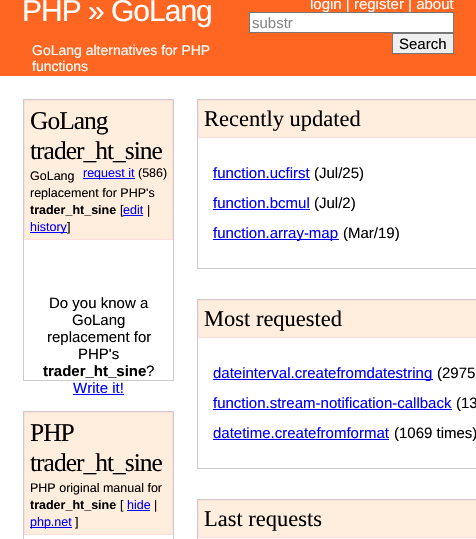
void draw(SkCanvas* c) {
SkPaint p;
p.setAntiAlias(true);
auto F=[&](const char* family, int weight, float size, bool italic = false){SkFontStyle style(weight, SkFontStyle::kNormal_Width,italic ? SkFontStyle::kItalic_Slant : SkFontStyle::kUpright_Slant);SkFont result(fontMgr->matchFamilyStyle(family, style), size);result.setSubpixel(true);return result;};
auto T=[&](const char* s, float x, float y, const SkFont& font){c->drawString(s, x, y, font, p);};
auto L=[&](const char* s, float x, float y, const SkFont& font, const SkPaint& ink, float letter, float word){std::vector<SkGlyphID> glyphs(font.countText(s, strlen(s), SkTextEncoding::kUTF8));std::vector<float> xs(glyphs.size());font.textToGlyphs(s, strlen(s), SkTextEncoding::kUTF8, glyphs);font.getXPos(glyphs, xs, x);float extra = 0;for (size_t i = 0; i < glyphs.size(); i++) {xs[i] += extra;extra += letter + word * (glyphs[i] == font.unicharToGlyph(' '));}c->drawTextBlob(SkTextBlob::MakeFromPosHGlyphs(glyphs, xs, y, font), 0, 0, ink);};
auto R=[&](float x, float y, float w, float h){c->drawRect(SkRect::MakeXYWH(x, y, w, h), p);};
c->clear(0xffffffff);
p.setColor(0xffff6622);
R(0,0,476,76);
auto f1 = F("Liberation Sans",400,30);
p.setColor(0xffffffff);
L("PHP » GoLang",22,21,f1,p,-1,0);
auto f2 = F("Liberation Sans",400,14);
T("GoLang alternatives for PHP",32,55,f2);
T("functions",32,71,f2);
auto f3 = F("Liberation Sans",400,15);
T("login | register | about",310,9,f3);
c->drawRect(SkRect::MakeXYWH(249.5,12.5,204,20),p);
p.setStroke(true);
p.setStrokeWidth(1);
p.setColor(0xff777777);
c->drawRect(SkRect::MakeXYWH(249.5,12.5,204,20),p);
p.setStroke(false);
p.setColor(0xff888888);
T("substr",252,28,f3);
p.setColor(0xffefefef);
c->drawRect(SkRect::MakeXYWH(392.5,33.5,61,20),p);
p.setStroke(true);
p.setColor(0xff777777);
c->drawRect(SkRect::MakeXYWH(392.5,33.5,61,20),p);
p.setStroke(false);
p.setColor(0xff000000);
T("Search",399,49,f3);
p.setStroke(true);
p.setColor(0xffcccccc);
c->drawRect(SkRect::MakeXYWH(23.5,99.5,150,281),p);
p.setStroke(false);
p.setColor(0xffffeedd);
c->drawRect(SkRect::MakeXYWH(24.5,100.5,148,139),p);
p.setStroke(true);
p.setColor(0xffffdddd);
c->drawRect(SkRect::MakeXYWH(24.5,100.5,148,139),p);
auto f4 = F("Liberation Serif",400,25.5);
p.setStroke(false);
p.setColor(0xff000000);
L("GoLang",30,129,f4,p,-1,0);
L("trader_ht_sine",30,159,f4,p,-1,0);
auto f5 = F("Liberation Sans",400,12.5);
T("GoLang",30,180,f5);
p.setColor(0xff0000ff);
R(83,178,52,1);
T("request it",83,177,f5);
p.setColor(0xff000000);
T("(586)",138,177,f5);
T("replacement for PHP's",30,197,f5);
auto f6 = F("Liberation Sans",700,12.5);
T("trader_ht_sine",30,214,f6);
T("[",120,214,f5);
p.setColor(0xff0000ff);
T("edit",123,214,f5);
R(123,215,20,1);
p.setColor(0xff000000);
T("|",147,214,f5);
p.setColor(0xff0000ff);
R(30,232,37,1);
T("history",30,231,f5);
p.setColor(0xff000000);
T("]",67,231,f5);
T("Do you know a",49,308,f3);
T("GoLang",72,325,f3);
T("replacement for",47,342,f3);
T("PHP's",78,359,f3);
auto f7 = F("Liberation Sans",700,15);
T("trader_ht_sine",43,376,f7);
T("?",146,376,f3);
p.setColor(0xff0000ff);
T("Write it!",73,393,f3);
R(73,394,51,1);
p.setStroke(true);
p.setColor(0xffcccccc);
c->drawRect(SkRect::MakeXYWH(23.5,411.5,150,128),p);
p.setStroke(false);
p.setColor(0xffffeedd);
c->drawRect(SkRect::MakeXYWH(24.5,412.5,148,122),p);
p.setStroke(true);
p.setColor(0xffffdddd);
c->drawRect(SkRect::MakeXYWH(24.5,412.5,148,122),p);
p.setStroke(false);
p.setColor(0xff000000);
L("PHP",30,441,f4,p,-1,0);
L("trader_ht_sine",30,471,f4,p,-1,0);
T("PHP original manual for",30,492,f5);
T("trader_ht_sine",30,509,f6);
T("[",120,509,f5);
p.setColor(0xff0000ff);
T("hide",127,509,f5);
R(127,510,23,1);
p.setColor(0xff000000);
T("|",154,509,f5);
p.setColor(0xff0000ff);
R(30,527,42,1);
T("php.net",30,526,f5);
p.setColor(0xff000000);
T("]",75,526,f5);
p.setStroke(true);
p.setColor(0xffcccccc);
c->drawRect(SkRect::MakeXYWH(197.5,99.5,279,169),p);
p.setStroke(false);
p.setColor(0xffffeedd);
c->drawRect(SkRect::MakeXYWH(198.5,100.5,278,37),p);
p.setStroke(true);
p.setColor(0xffffdddd);
c->drawRect(SkRect::MakeXYWH(198.5,100.5,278,37),p);
auto f8 = F("Liberation Serif",400,22.5);
p.setStroke(false);
p.setColor(0xff000000);
T("Recently updated",204,126,f8);
p.setColor(0xff0000ff);
T("function.ucfirst",213,178,f3);
R(213,179,97,1);
p.setColor(0xff000000);
T("(Jul/25)",314,178,f3);
p.setColor(0xff0000ff);
T("function.bcmul",213,208,f3);
R(213,209,97,1);
p.setColor(0xff000000);
T("(Jul/2)",314,208,f3);
p.setColor(0xff0000ff);
R(213,239,126,1);
T("function.array-map",213,238,f3);
p.setColor(0xff000000);
T("(Mar/19)",343,238,f3);
p.setStroke(true);
p.setColor(0xffcccccc);
c->drawRect(SkRect::MakeXYWH(197.5,299.5,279,169),p);
p.setStroke(false);
p.setColor(0xffffeedd);
c->drawRect(SkRect::MakeXYWH(198.5,300.5,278,37),p);
p.setStroke(true);
p.setColor(0xffffdddd);
c->drawRect(SkRect::MakeXYWH(198.5,300.5,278,37),p);
p.setStroke(false);
p.setColor(0xff000000);
T("Most requested",204,326,f8);
p.setColor(0xff0000ff);
R(213,379,220,1);
T("dateinterval.createfromdatestring",213,378,f3);
p.setColor(0xff000000);
T("(2975",437,378,f3);
p.setColor(0xff0000ff);
T("function.stream-notification-callback",213,408,f3);
R(213,409,239,1);
p.setColor(0xff000000);
T("(13",456,408,f3);
p.setColor(0xff0000ff);
T("datetime.createfromformat",213,438,f3);
R(213,439,176,1);
p.setColor(0xff000000);
T("(1069 times)",394,438,f3);
p.setStroke(true);
p.setColor(0xffcccccc);
c->drawRect(SkRect::MakeXYWH(197.5,499.5,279,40),p);
p.setStroke(false);
p.setColor(0xffffeedd);
c->drawRect(SkRect::MakeXYWH(198.5,500.5,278,37),p);
p.setStroke(true);
p.setColor(0xffffdddd);
c->drawRect(SkRect::MakeXYWH(198.5,500.5,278,37),p);
p.setStroke(false);
p.setColor(0xff000000);
T("Last requests",204,526,f8);
}
